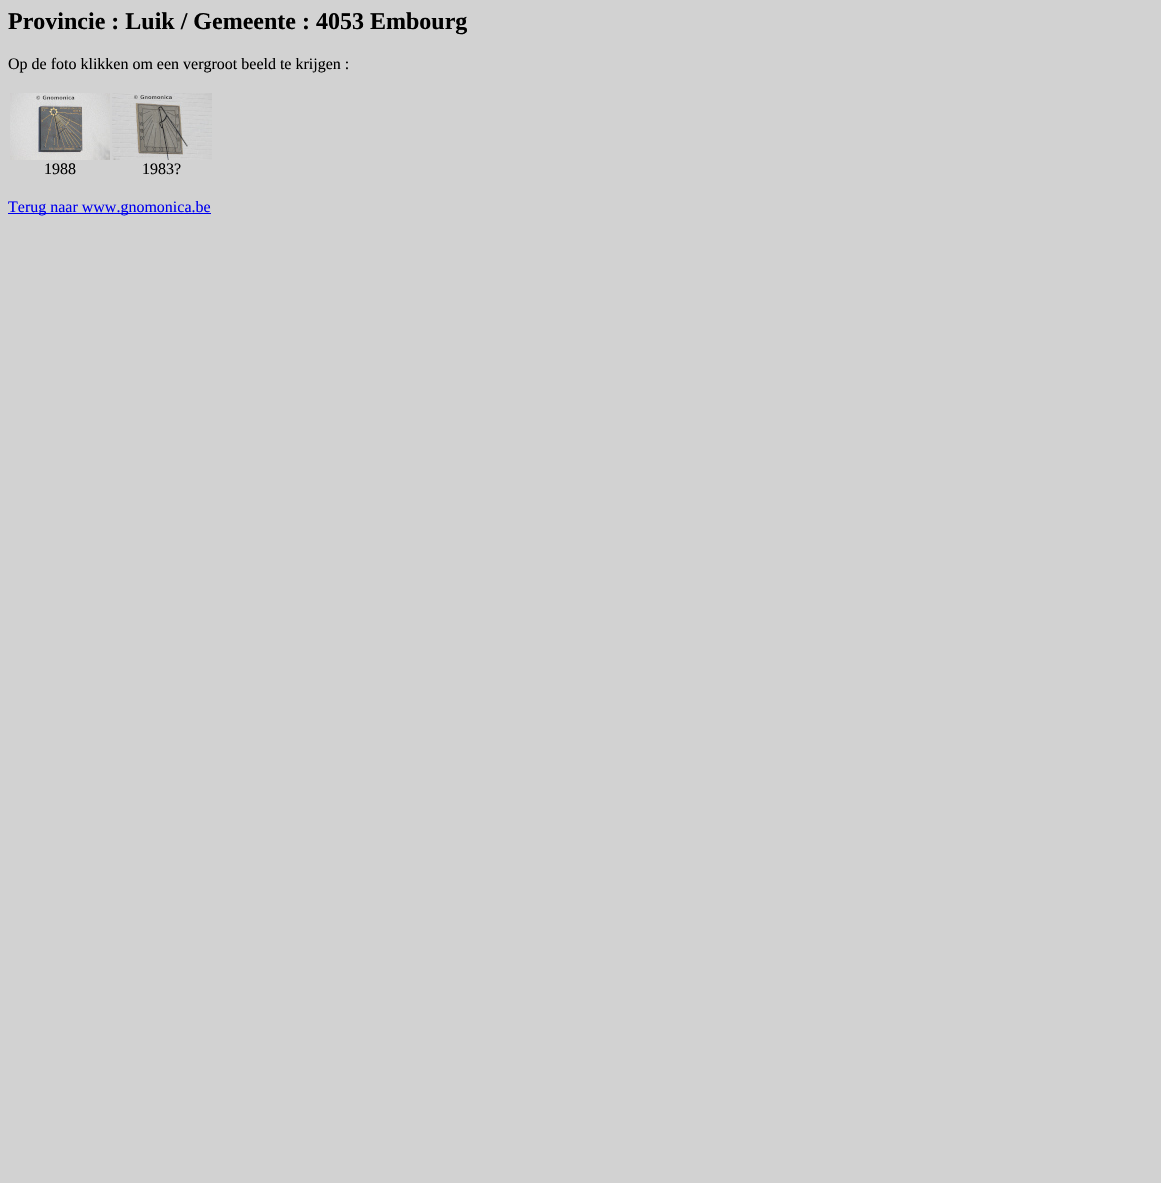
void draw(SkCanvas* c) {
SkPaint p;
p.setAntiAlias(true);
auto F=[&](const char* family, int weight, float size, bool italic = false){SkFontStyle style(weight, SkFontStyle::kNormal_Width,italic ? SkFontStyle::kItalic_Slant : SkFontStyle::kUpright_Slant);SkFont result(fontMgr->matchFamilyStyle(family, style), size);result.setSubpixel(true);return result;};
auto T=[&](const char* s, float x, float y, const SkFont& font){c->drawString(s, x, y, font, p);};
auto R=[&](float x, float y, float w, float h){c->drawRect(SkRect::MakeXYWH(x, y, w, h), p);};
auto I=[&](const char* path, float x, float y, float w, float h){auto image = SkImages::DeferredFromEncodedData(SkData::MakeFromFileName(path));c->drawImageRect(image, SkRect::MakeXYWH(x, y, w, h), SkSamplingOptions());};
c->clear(0xffd2d2d2);
auto f1 = F("Liberation Serif",700,24);
p.setColor(0xff000000);
T("Provincie : Luik / Gemeente : 4053 Embourg",8,29,f1);
auto f2 = F("Liberation Serif",400,16);
T("Op de foto klikken om een vergroot beeld te krijgen :",8,69,f2);
I("1.png",10,93,100,67);
T("1988",44,174,f2);
I("2.png",112,93,100,67);
T("1983?",142,174,f2);
p.setColor(0xff0000ee);
R(8,213,203,1);
T("Terug naar www.gnomonica.be",8,212,f2);
}
